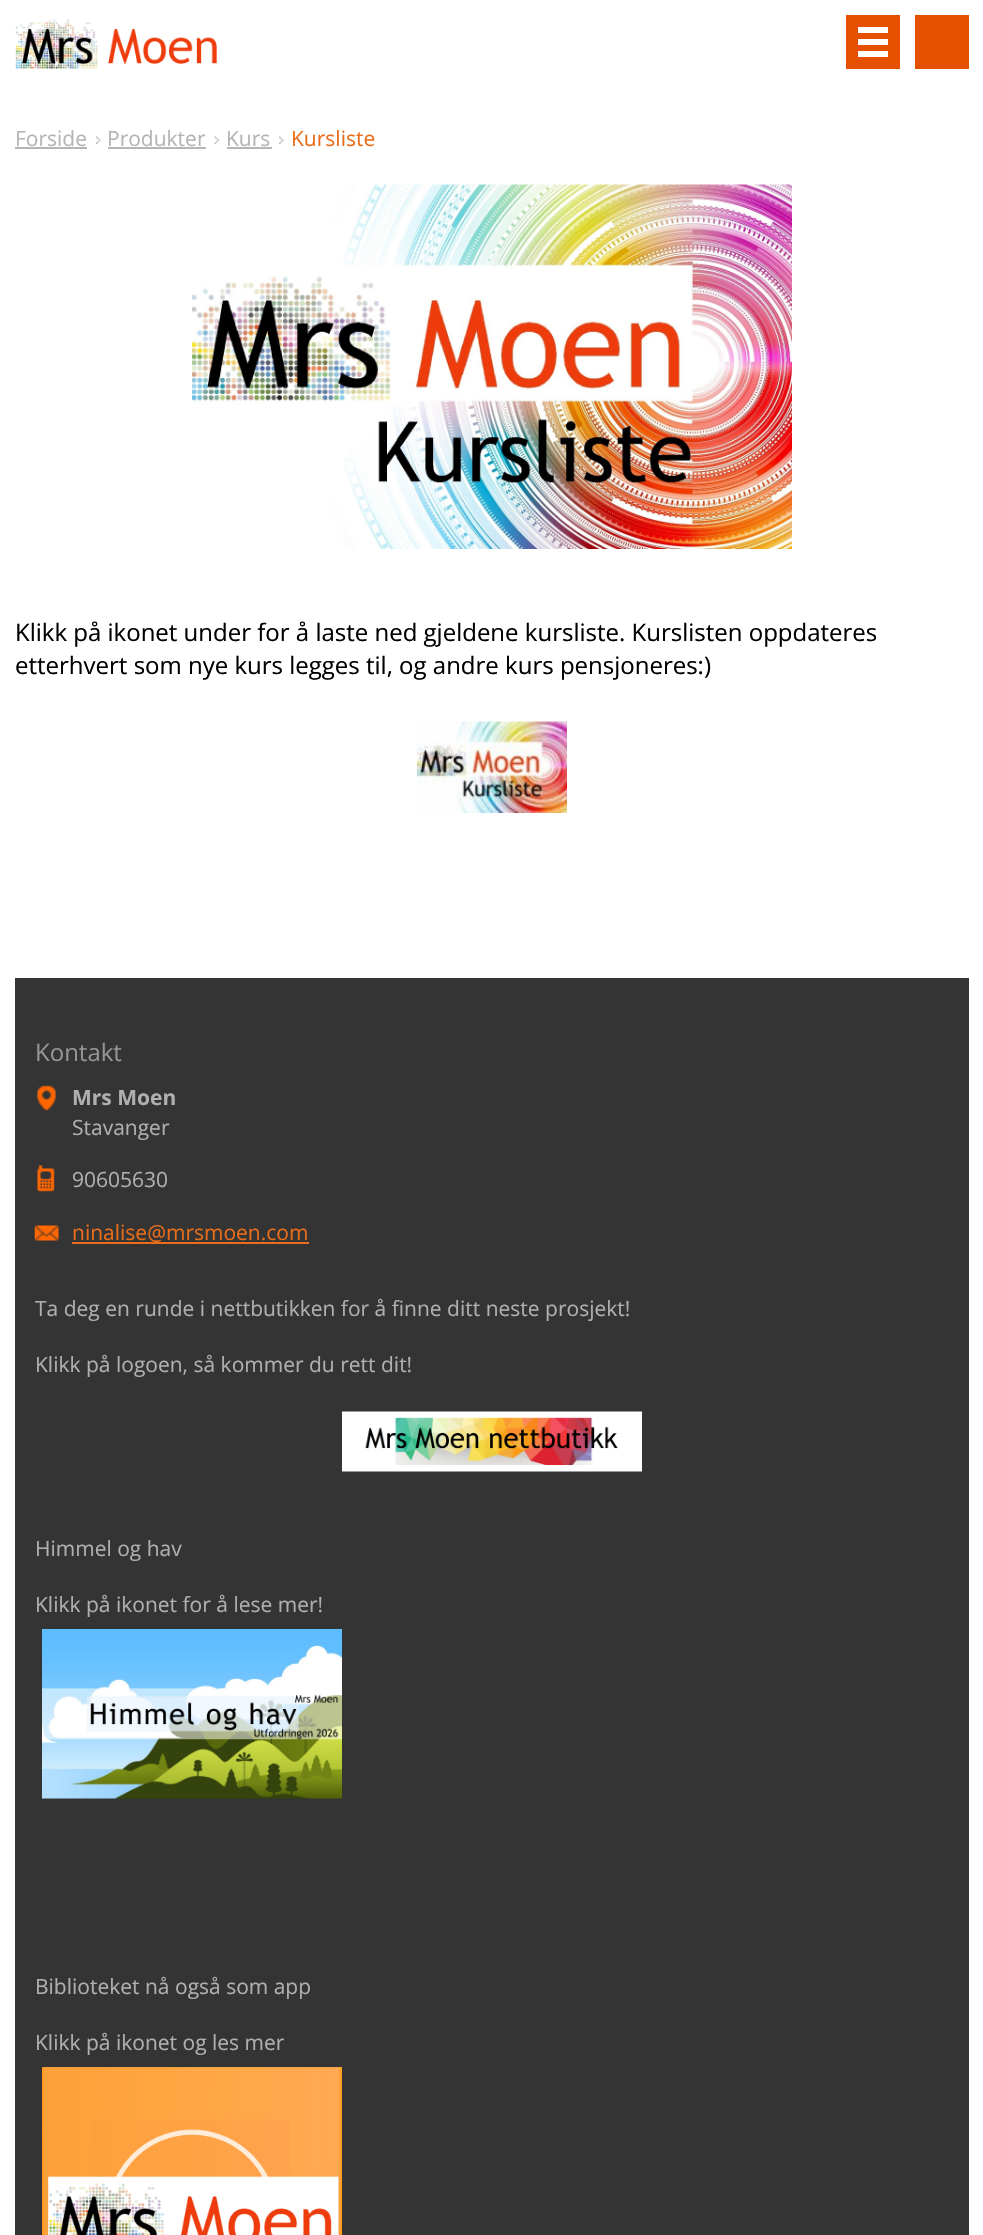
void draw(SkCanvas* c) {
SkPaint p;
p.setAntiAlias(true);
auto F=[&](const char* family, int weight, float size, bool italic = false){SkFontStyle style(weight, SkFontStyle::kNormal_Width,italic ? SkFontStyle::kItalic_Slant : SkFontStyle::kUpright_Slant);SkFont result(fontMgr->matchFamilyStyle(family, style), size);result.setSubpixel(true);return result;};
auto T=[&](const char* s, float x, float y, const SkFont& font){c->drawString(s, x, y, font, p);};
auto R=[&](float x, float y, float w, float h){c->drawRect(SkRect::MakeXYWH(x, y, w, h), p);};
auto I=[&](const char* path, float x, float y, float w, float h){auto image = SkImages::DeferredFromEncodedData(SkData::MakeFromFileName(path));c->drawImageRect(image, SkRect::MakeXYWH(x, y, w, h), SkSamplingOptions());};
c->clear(0xffffffff);
I("1.png",15,19,202,50);
p.setColor(0xffe44f00);
R(846,15,54,54);
p.setColor(0xffffffff);
R(858,27,30,6);
R(858,51,30,6);
R(858,39,30,6);
p.setColor(0xffe44f00);
R(915,15,54,54);
auto f1 = F("Open Sans",400,21);
p.setColor(0xffb5b5b5);
T("Forside",15,146,f1);
R(15,147,72,2);
I("2.png",96,136,5,8);
T("Produkter",107,146,f1);
R(108,147,98,2);
I("3.png",214,136,5,8);
T("Kurs",226,146,f1);
R(227,147,45,2);
I("4.png",279,136,5,8);
p.setColor(0xffe96d1a);
T("Kursliste",291,146,f1);
I("5.png",192,184,600,365);
auto f2 = F("Open Sans",400,24);
p.setColor(0xff000000);
T("Klikk på ikonet under for å laste ned gjeldene kursliste. Kurslisten oppdateres",15,641,f2);
T("etterhvert som nye kurs legges til, og andre kurs pensjoneres:)",15,674,f2);
I("6.png",417,721,150,92);
p.setColor(0xff343434);
R(15,978,954,1257);
p.setColor(0xff959595);
T("Kontakt",35,1061,f2);
I("7.png",37,1085,19,26);
auto f3 = F("Open Sans",700,21);
p.setColor(0xffb0afaf);
T("Mrs Moen",72,1105,f3);
T("Stavanger",72,1135,f1);
I("8.png",37,1165,18,27);
T("90605630",72,1187,f1);
I("9.png",34,1225,25,16);
p.setColor(0xffe96d1a);
T("ninalise@mrsmoen.com",72,1240,f1);
R(72,1242,237,2);
p.setColor(0xffb0afaf);
T("Ta deg en runde i nettbutikken for å finne ditt neste prosjekt!",35,1316,f1);
T("Klikk på logoen, så kommer du rett dit!",35,1372,f1);
I("10.png",342,1411,300,61);
T("Himmel og hav",35,1556,f1);
T("Klikk på ikonet for å lese mer!",35,1612,f1);
I("11.png",42,1629,300,170);
T("Biblioteket nå også som app",35,1994,f1);
T("Klikk på ikonet og les mer",35,2050,f1);
I("12.png",42,2067,300,168);
}
